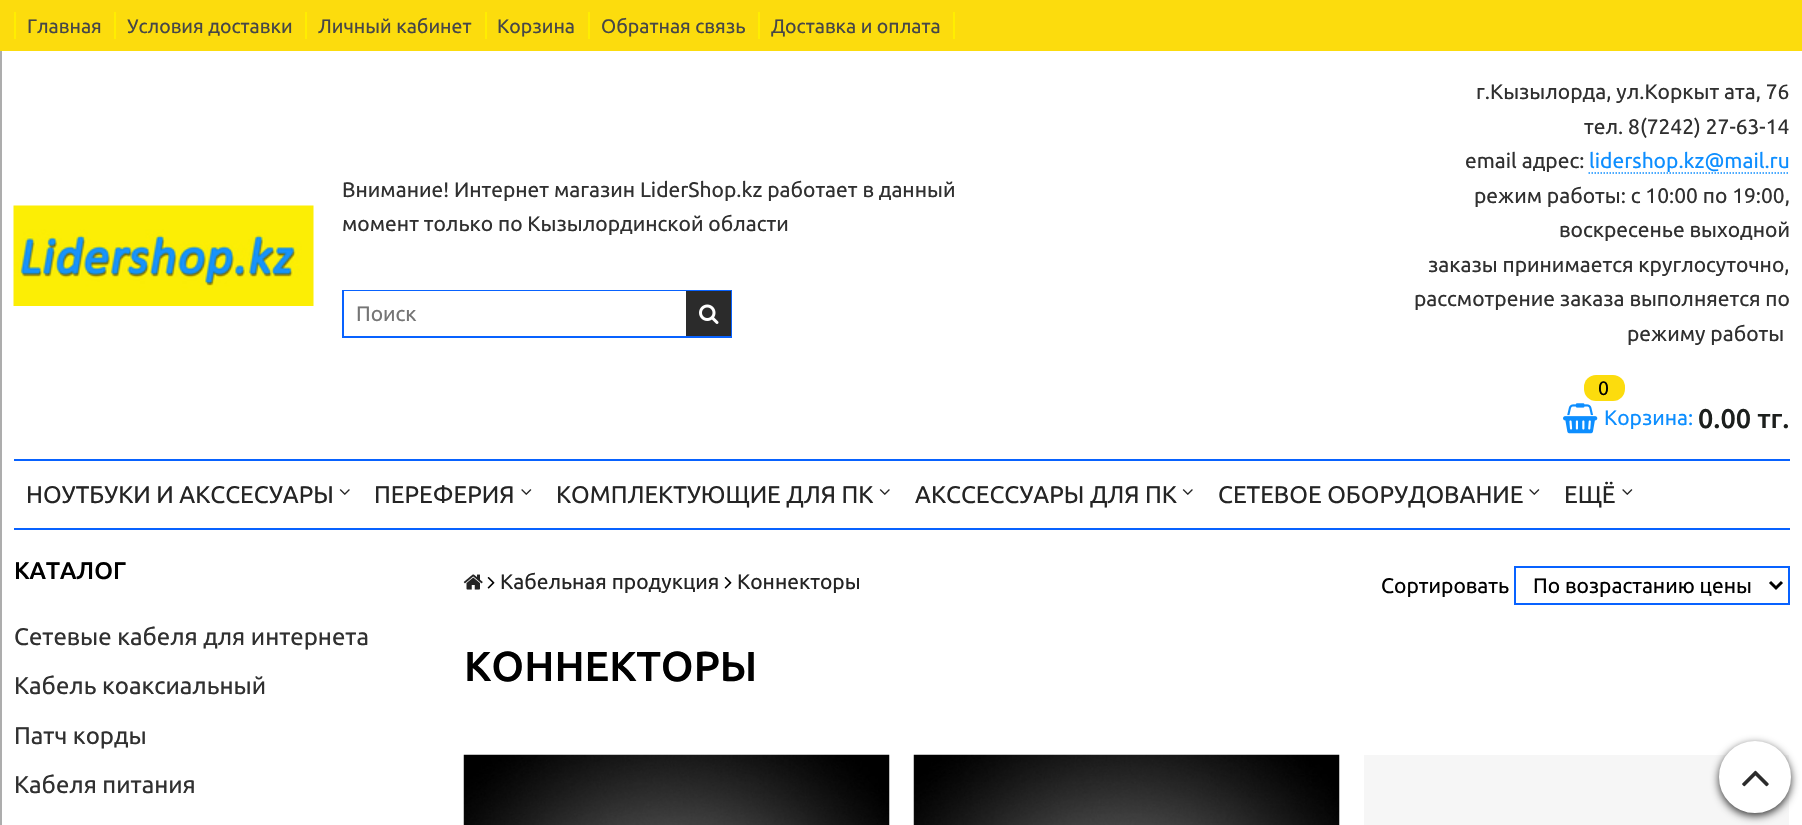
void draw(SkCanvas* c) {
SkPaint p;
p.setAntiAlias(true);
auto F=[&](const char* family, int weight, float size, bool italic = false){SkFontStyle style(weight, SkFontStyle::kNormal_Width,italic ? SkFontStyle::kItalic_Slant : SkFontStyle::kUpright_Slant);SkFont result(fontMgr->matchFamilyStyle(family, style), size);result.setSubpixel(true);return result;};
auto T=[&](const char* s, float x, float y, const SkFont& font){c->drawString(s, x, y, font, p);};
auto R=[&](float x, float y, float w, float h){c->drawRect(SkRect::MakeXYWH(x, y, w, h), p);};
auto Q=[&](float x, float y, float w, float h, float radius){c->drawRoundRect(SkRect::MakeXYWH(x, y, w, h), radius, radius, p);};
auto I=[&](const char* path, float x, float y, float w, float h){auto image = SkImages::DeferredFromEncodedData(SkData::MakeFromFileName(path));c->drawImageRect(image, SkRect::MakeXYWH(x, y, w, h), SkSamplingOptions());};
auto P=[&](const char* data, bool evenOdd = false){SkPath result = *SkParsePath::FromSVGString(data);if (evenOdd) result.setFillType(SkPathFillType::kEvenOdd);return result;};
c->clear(0xffadadad);
p.setColor(0xfffcdc0d);
R(0,0,1802,51);
p.setColor(0xffffee00);
R(14,12,2,27);
auto f1 = F("Ubuntu",400,19.5);
p.setColor(0xff474747);
T("Главная",27,33,f1);
p.setColor(0xffffee00);
R(114,12,2,27);
p.setColor(0xff474747);
T("Условия доставки",127,33,f1);
p.setColor(0xffffee00);
R(305,12,2,27);
p.setColor(0xff474747);
T("Личный кабинет",318,33,f1);
p.setColor(0xffffee00);
R(485,12,2,27);
p.setColor(0xff474747);
T("Корзина",497,33,f1);
p.setColor(0xffffee00);
R(588,12,2,27);
p.setColor(0xff474747);
T("Обратная связь",601,33,f1);
p.setColor(0xffffee00);
R(953,12,2,27);
R(758,12,2,27);
p.setColor(0xff474747);
T("Доставка и оплата",771,33,f1);
p.setColor(0xffffffff);
R(2,51,1800,774);
I("1.png",13,205,301,101);
auto f2 = F("Ubuntu",400,21);
p.setColor(0xff303030);
T("Внимание! Интернет магазин LiderShop.kz работает в данный",342,197,f2);
T("момент только по Кызылординской области",342,231,f2);
p.setStroke(true);
p.setStrokeWidth(2);
p.setColor(0xff0862ff);
c->drawRect(SkRect::MakeXYWH(343,291,388,46),p);
p.setStroke(false);
p.setColor(0xffffffff);
R(344,291,342,1);
p.setColor(0xff757575);
T("Поиск",356,321,f2);
p.setColor(0xff2b2b2b);
R(686,291,45,45);
I("2.png",699,304,20,20);
p.setColor(0xff303030);
T("г.Кызылорда, ул.Коркыт ата, 76",1476,99,f2);
T("тел. 8(7242) 27-63-14",1584,134,f2);
T("email адрес:",1465,168,f2);
p.setColor(0xff0d8eff);
T("lidershop.kz@mail.ru",1589,168,f2);
p.setStroke(true);
p.setStrokeWidth(1.5);
p.setPathEffect(SkDashPathEffect::Make({{1.5f,1.5f}}, 0));
c->drawPath(P("M1588.5 173h201"),p);
p.setPathEffect(nullptr);
p.setStroke(false);
p.setColor(0xff303030);
T("режим работы: с 10:00 по 19:00,",1474,203,f2);
T("воскресенье выходной",1559,237,f2);
T("заказы принимается круглосуточно,",1428,272,f2);
T("рассмотрение заказа выполняется по",1414,306,f2);
T("режиму работы",1627,341,f2);
p.setColor(0xfffcdc0d);
Q(1584,375,41,26,12);
p.setColor(0xff000000);
T("0",1598,395,f1);
I("3.png",1563,403,35,31);
p.setColor(0xff0d8eff);
T("Корзина:",1604,425,f2);
auto f3 = F("Ubuntu",500,27);
p.setColor(0xff1c1f1d);
T("0.00 тг.",1698,428,f3);
p.setColor(0xff0862ff);
R(14,459,1776,2);
R(14,528,1776,2);
auto f4 = F("Ubuntu",400,24);
p.setColor(0xff242424);
T("НОУТБУКИ И АКССЕСУАРЫ",26,503,f4);
I("4.png",339,489,11,6);
T("ПЕРЕФЕРИЯ",374,503,f4);
I("5.png",521,489,11,6);
T("КОМПЛЕКТУЮЩИЕ ДЛЯ ПК",556,503,f4);
I("4.png",879,489,11,6);
T("АКССЕССУАРЫ ДЛЯ ПК",915,503,f4);
I("4.png",1182,489,11,6);
T("СЕТЕВОЕ ОБОРУДОВАНИЕ",1218,503,f4);
I("5.png",1529,489,11,6);
T("ЕЩЁ",1564,503,f4);
I("5.png",1622,489,11,6);
auto f5 = F("Ubuntu",500,24);
p.setColor(0xff000000);
T("КАТАЛОГ",14,579,f5);
p.setColor(0xff303030);
T("Сетевые кабеля для интернета",14,645,f4);
T("Кабель коаксиальный",14,694,f4);
T("Патч корды",14,744,f4);
T("Кабеля питания",14,793,f4);
I("6.png",463,574,20,16);
I("7.png",487,577,8,12);
p.setColor(0xff242424);
T("Кабельная продукция",500,589,f2);
I("7.png",724,577,8,12);
T("Коннекторы",737,589,f2);
p.setColor(0xff000000);
T("Сортировать",1381,593,f2);
p.setStroke(true);
p.setStrokeWidth(2);
p.setColor(0xff0862ff);
c->drawRect(SkRect::MakeXYWH(1515,567,274,37),p);
p.setStrokeWidth(3);
p.setColor(0xff000000);
c->drawPath(P("M1770 582l6 6l6-6"),p);
p.setStroke(false);
T("По возрастанию цены",1533,593,f2);
auto f6 = F("Ubuntu",500,42);
T("КОННЕКТОРЫ",464,681,f6);
I("8.png",463,754,427,71);
I("9.png",913,754,427,71);
p.setColor(0xfff6f6f6);
R(1364,755,425,70);
p.setColor(0xff333333);
p.setMaskFilter(SkMaskFilter::MakeBlur(kNormal_SkBlurStyle, 4.5));
c->drawRoundRect(SkRect::MakeXYWH(1719,744,72,72),36,36,p);
p.setMaskFilter(nullptr);
p.setColor(0xffffffff);
c->drawCircle(1755,777,35,p);
p.setStroke(true);
p.setStrokeWidth(2);
c->drawCircle(1755,777,35,p);
I("10.png",1742,770,27,17);
}
